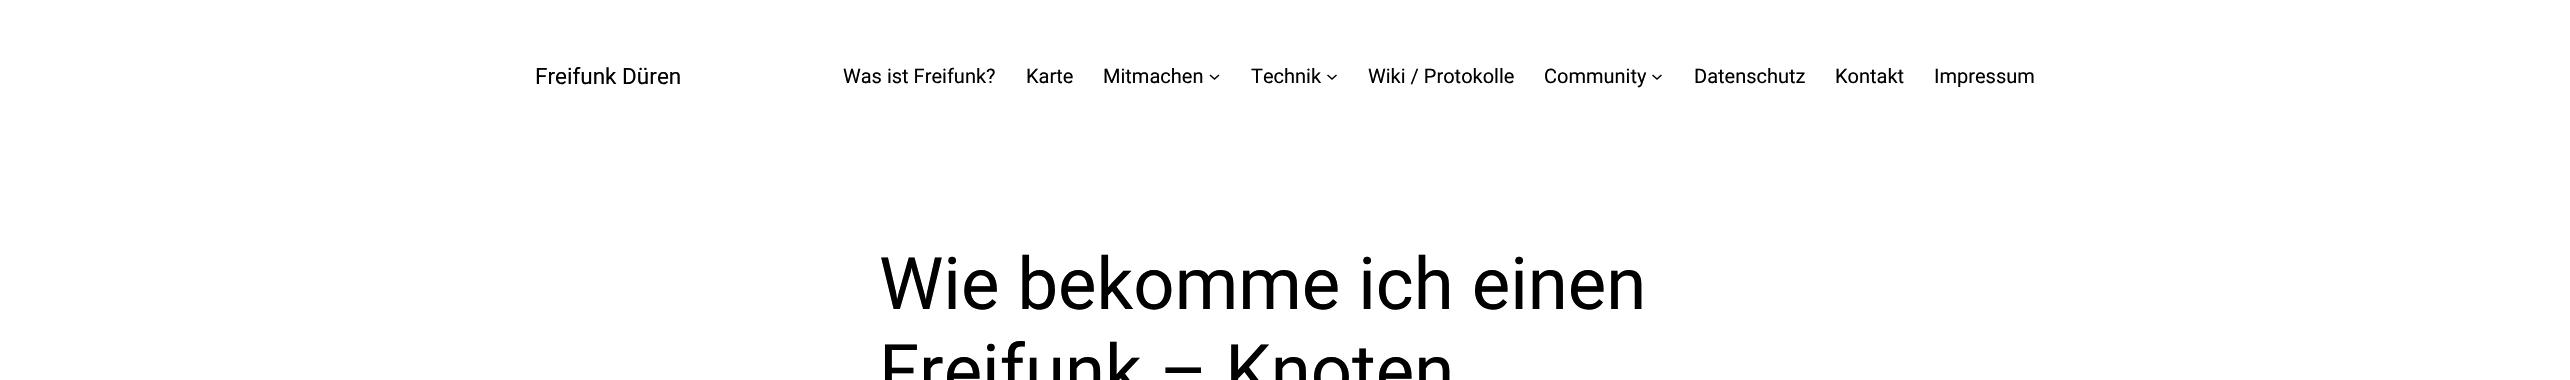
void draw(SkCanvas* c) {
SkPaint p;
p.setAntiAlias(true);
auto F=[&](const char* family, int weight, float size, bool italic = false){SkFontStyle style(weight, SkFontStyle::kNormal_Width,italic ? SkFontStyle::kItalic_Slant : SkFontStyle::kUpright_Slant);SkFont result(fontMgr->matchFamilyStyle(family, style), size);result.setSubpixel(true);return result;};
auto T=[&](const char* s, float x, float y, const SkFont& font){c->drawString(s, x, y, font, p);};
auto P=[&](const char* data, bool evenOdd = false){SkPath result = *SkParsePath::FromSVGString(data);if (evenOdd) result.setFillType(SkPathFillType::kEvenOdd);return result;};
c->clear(0xffffffff);
auto f1 = F("Roboto",400,22.5);
p.setColor(0xff000000);
T("Freifunk Düren",535,84,f1);
auto f2 = F("Roboto",400,20);
T("Was ist Freifunk?",843,83,f2);
T("Karte",1026,83,f2);
T("Mitmachen",1103,83,f2);
p.setStroke(true);
p.setStrokeWidth(1.5);
c->drawPath(P("M1210 75l4.5 4l4.5-4"),p);
p.setStroke(false);
T("Technik",1251,83,f2);
p.setStroke(true);
c->drawPath(P("M1327.5 75l4.5 4l4.5-4"),p);
p.setStroke(false);
T("Wiki / Protokolle",1368,83,f2);
T("Community",1544,83,f2);
p.setStroke(true);
c->drawPath(P("M1652.5 75l4.5 4l4.5-4"),p);
p.setStroke(false);
T("Datenschutz",1694,83,f2);
T("Kontakt",1835,83,f2);
T("Impressum",1934,83,f2);
auto f3 = F("Roboto",400,72.5);
T("Wie bekomme ich einen",879,309,f3);
T("Freifunk – Knoten",879,396,f3);
}
